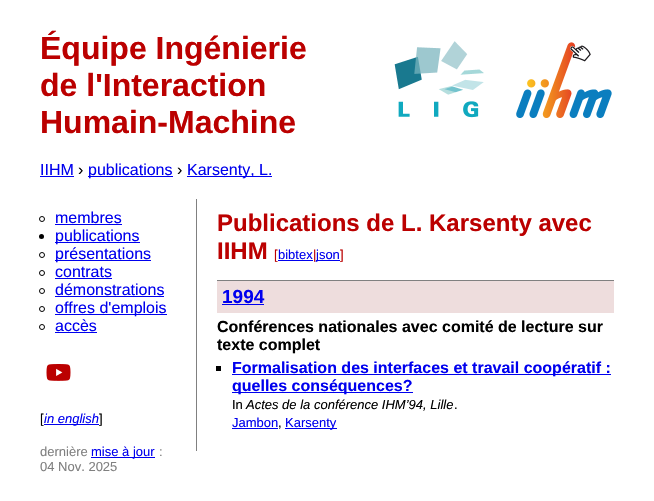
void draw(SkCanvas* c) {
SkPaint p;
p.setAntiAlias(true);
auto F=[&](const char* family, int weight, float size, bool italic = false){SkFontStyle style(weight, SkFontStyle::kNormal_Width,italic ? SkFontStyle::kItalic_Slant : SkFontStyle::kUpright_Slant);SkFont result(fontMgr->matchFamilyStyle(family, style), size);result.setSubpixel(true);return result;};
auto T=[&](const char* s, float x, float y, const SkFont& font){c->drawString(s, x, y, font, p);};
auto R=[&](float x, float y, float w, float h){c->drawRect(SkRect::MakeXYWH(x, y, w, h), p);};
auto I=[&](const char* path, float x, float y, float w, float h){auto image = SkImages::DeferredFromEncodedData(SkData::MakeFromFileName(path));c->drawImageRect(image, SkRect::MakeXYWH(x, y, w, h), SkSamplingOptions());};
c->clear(0xffffffff);
auto f1 = F("Liberation Sans",700,32);
p.setColor(0xffbb0000);
T("Équipe Ingénierie",40,59,f1);
T("de l'Interaction",40,96,f1);
T("Humain-Machine",40,133,f1);
I("1.png",394,41,90,77);
I("2.png",516,42,96,76);
auto f2 = F("Liberation Sans",400,16);
p.setColor(0xff0000ee);
T("IIHM",40,175,f2);
R(40,176,34,1);
p.setColor(0xff000000);
T("›",78,175,f2);
p.setColor(0xff0000ee);
R(88,176,85,1);
T("publications",88,175,f2);
p.setColor(0xff000000);
T("›",177,175,f2);
p.setColor(0xff0000ee);
R(187,176,85,1);
T("Karsenty, L.",187,175,f2);
p.setStroke(true);
p.setStrokeWidth(1);
p.setColor(0xff000000);
c->drawCircle(42,219,2.5,p);
p.setStroke(false);
p.setColor(0xff0000ee);
T("membres",55,223,f2);
R(55,224,67,1);
p.setColor(0xff000000);
c->drawCircle(41.5,236.5,2.5,p);
p.setColor(0xff0000ee);
R(55,242,85,1);
T("publications",55,241,f2);
p.setStroke(true);
p.setColor(0xff000000);
c->drawCircle(42,255,2.5,p);
p.setStroke(false);
p.setColor(0xff0000ee);
R(55,260,96,1);
T("présentations",55,259,f2);
p.setStroke(true);
p.setColor(0xff000000);
c->drawCircle(42,273,2.5,p);
p.setStroke(false);
p.setColor(0xff0000ee);
T("contrats",55,277,f2);
R(55,278,57,1);
p.setStroke(true);
p.setColor(0xff000000);
c->drawCircle(42,291,2.5,p);
p.setStroke(false);
p.setColor(0xff0000ee);
T("démonstrations",55,295,f2);
R(55,296,109,1);
p.setStroke(true);
p.setColor(0xff000000);
c->drawCircle(42,309,2.5,p);
p.setStroke(false);
p.setColor(0xff0000ee);
R(55,314,112,1);
T("offres d'emplois",55,313,f2);
p.setStroke(true);
p.setColor(0xff000000);
c->drawCircle(42,327,2.5,p);
p.setStroke(false);
p.setColor(0xff0000ee);
T("accès",55,331,f2);
R(55,332,42,1);
I("3.png",46,364,25,17);
auto f3 = F("Liberation Sans",400,13);
p.setColor(0xff000000);
T("[",40,423,f3);
p.setColor(0xff0000ee);
R(44,424,55,1);
auto f4 = F("Liberation Sans",400,13,true);
T("in english",44,423,f4);
p.setColor(0xff000000);
T("]",99,423,f3);
p.setColor(0xff808080);
T("dernière",40,456,f3);
p.setColor(0xff0000ee);
R(91,457,64,1);
T("mise à jour",91,456,f3);
p.setColor(0xff808080);
T(":",159,456,f3);
T("04 Nov. 2025",40,471,f3);
R(196,199,1,252);
auto f5 = F("Liberation Sans",700,24);
p.setColor(0xffbb0000);
T("Publications de L. Karsenty avec",217,231,f5);
T("IIHM",217,259,f5);
T("[",274,259,f3);
p.setColor(0xff0000ee);
R(278,260,35,1);
T("bibtex",278,259,f3);
p.setColor(0xffbb0000);
T("|",313,259,f3);
p.setColor(0xff0000ee);
R(316,260,24,1);
T("json",316,259,f3);
p.setColor(0xffbb0000);
T("]",340,259,f3);
p.setColor(0xffeedddd);
R(217,281,397,32);
p.setColor(0xff808080);
R(217,280,397,1);
auto f6 = F("Liberation Sans",700,19);
p.setColor(0xff0000ee);
T("1994",222,303,f6);
R(222,304,42,1);
auto f7 = F("Liberation Sans",700,16);
p.setColor(0xff000000);
T("Conférences nationales avec comité de lecture sur",217,332,f7);
T("texte complet",217,350,f7);
R(216,366,5,5);
p.setColor(0xff0000ee);
R(232,374,379,1);
T("Formalisation des interfaces et travail coopératif :",232,373,f7);
R(232,392,181,1);
T("quelles conséquences?",232,391,f7);
p.setColor(0xff000000);
T("In",232,409,f3);
T("Actes de la conférence IHM’94, Lille",246,409,f4);
T(".",454,409,f3);
p.setColor(0xff0000ee);
T("Jambon",232,427,f3);
p.setColor(0xff000000);
T(",",278,427,f3);
p.setColor(0xff0000ee);
R(232,428,46,1);
R(285,428,52,1);
T("Karsenty",285,427,f3);
}
